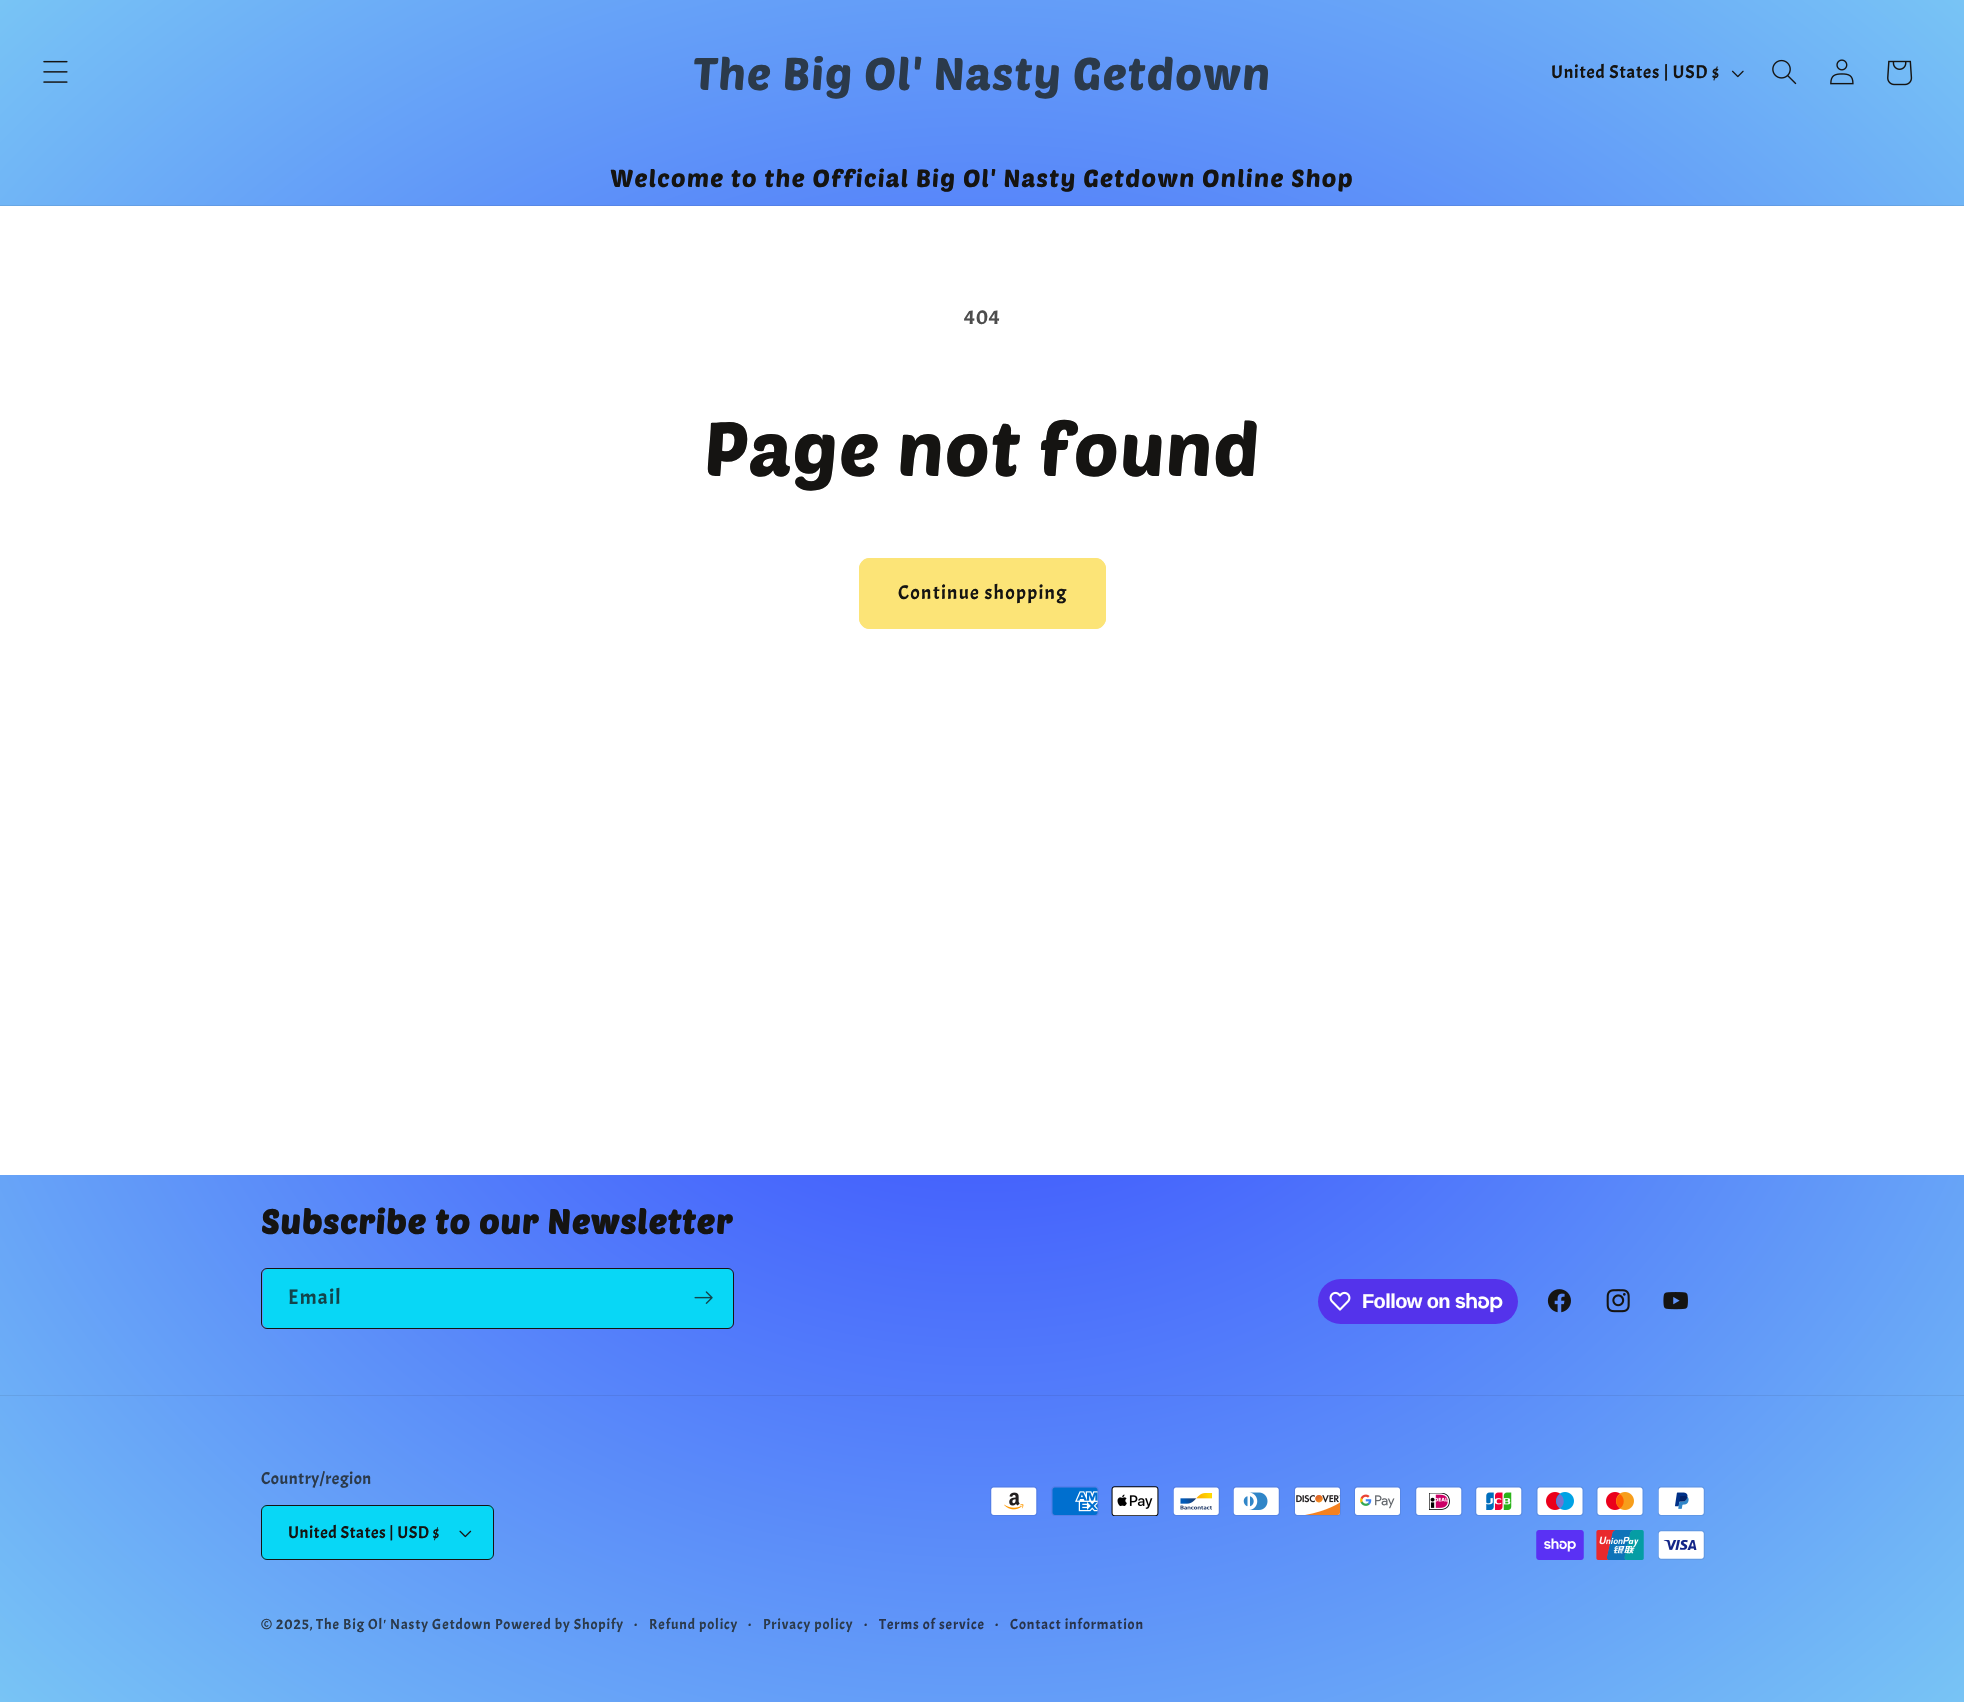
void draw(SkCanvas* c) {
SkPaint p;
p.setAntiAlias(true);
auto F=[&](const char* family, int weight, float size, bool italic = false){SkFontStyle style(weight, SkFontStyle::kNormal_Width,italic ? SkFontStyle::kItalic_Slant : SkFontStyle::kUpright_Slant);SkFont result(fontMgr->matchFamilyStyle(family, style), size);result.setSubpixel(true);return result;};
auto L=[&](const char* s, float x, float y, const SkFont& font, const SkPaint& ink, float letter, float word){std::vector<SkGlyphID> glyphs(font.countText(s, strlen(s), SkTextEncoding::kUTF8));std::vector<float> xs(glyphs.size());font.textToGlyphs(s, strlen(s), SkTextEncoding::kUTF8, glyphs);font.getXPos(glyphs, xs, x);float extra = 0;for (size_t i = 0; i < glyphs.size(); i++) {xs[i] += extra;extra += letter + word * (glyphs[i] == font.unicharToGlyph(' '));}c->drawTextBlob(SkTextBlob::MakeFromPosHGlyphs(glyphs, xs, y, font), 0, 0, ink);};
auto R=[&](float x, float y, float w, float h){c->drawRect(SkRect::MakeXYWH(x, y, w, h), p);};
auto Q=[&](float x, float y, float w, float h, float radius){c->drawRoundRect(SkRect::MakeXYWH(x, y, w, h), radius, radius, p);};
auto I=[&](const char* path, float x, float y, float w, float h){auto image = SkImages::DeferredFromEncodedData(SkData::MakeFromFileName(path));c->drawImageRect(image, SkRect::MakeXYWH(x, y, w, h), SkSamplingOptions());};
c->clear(0xffffffff);
{
const SkColor colors[] = {0xff3340ff,0xff78c4f5};
const float stops[] = {0,1};
SkMatrix m = SkMatrix::Translate(983,851).preScale(1389,1204);
p.setShader(SkGradientShader::MakeRadial({0, 0}, 1, colors, stops, 2, SkTileMode::kClamp, 0, &m));
p.setAlpha(255);
}
R(0,0,1964,150);
I("1.png",43,60,25,23);
auto f1 = F("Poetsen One",400,45);
p.setShader(nullptr);
p.setColor(0xff2b3a4b);
L("The Big Ol' Nasty Getdown",693,90,f1,p,1.1,0);
auto f2 = F("Acme",400,18.4);
p.setColor(0xff151412);
L("United States | USD $",1551,78,f2,p,.75,0);
I("2.png",1731,70,13,8);
I("3.png",1772,59,25,26);
I("4.png",1830,59,24,26);
I("5.png",1887,60,26,26);
{
const SkColor colors[] = {0xff3340ff,0xff78c4f5};
const float stops[] = {0,1};
SkMatrix m = SkMatrix::Translate(983,851).preScale(1389,1204);
p.setShader(SkGradientShader::MakeRadial({0, 0}, 1, colors, stops, 2, SkTileMode::kClamp, 0, &m));
p.setAlpha(255);
}
R(0,150,1964,55);
{
const SkColor colors[] = {0xff313cec,0xff70b6e3};
const float stops[] = {0,1};
SkMatrix m = SkMatrix::Translate(983,851).preScale(1389,1204);
p.setShader(SkGradientShader::MakeRadial({0, 0}, 1, colors, stops, 2, SkTileMode::kClamp, 0, &m));
p.setAlpha(255);
}
R(0,205,1964,1);
auto f3 = F("Poetsen One",400,24.4);
p.setShader(nullptr);
p.setColor(0xff151412);
L("Welcome to the Official Big Ol' Nasty Getdown Online Shop",610,187,f3,p,1.3,0);
auto f4 = F("Acme",400,21);
p.setColor(0xff4d4d4d);
L("404",964,324,f4,p,.75,0);
auto f5 = F("Poetsen One",400,75);
p.setColor(0xff151412);
L("Page not found",704,476,f5,p,1.1,0);
p.setColor(0xfffce477);
Q(859,558,247,71,11);
p.setStroke(true);
p.setStrokeWidth(6);
c->drawRoundRect(SkRect::MakeXYWH(862,561,241,65),8,8,p);
auto f6 = F("Acme",400,19.75);
p.setStroke(false);
p.setColor(0xff151412);
L("Continue shopping",898,599,f6,p,1.3,0);
{
const SkColor colors[] = {0xff3340ff,0xff78c4f5};
const float stops[] = {0,1};
SkMatrix m = SkMatrix::Translate(983,851).preScale(1389,1204);
p.setShader(SkGradientShader::MakeRadial({0, 0}, 1, colors, stops, 2, SkTileMode::kClamp, 0, &m));
p.setAlpha(255);
}
R(0,1175,1964,527);
{
const SkColor colors[] = {0xff313cec,0xff70b6e3};
const float stops[] = {0,1};
SkMatrix m = SkMatrix::Translate(983,851).preScale(1389,1204);
p.setShader(SkGradientShader::MakeRadial({0, 0}, 1, colors, stops, 2, SkTileMode::kClamp, 0, &m));
p.setAlpha(255);
}
R(0,1395,1964,1);
auto f7 = F("Poetsen One",700,33.75);
p.setShader(nullptr);
p.setColor(0xff151412);
L("Subscribe to our Newsletter",261,1234,f7,p,1.1,0);
p.setColor(0xff08d7f6);
Q(263,1269,470,59,5);
p.setStroke(true);
p.setStrokeWidth(1);
p.setColor(0xff151412);
c->drawRoundRect(SkRect::MakeXYWH(261.5,1268.5,472,60),5.5,5.5,p);
p.setStroke(false);
p.setColor(0xff12454b);
L("Email",288,1304,f4,p,1.3,0);
I("6.png",694,1291,19,13);
p.setColor(0xff5433eb);
Q(1318,1279,200,45,22.5);
I("7.png",1329,1291,22,20);
auto f8 = F("Liberation Sans",700,20);
p.setColor(0xffffffff);
L("Follow on",1362,1308,f8,p,-.6,0);
I("8.png",1455,1293,48,20);
I("9.png",1547,1289,24,24);
I("10.png",1606,1289,24,24);
I("11.png",1663,1292,25,18);
auto f9 = F("Acme",400,17);
p.setColor(0xff2b3a4b);
L("Country/region",261,1484,f9,p,.5,0);
p.setColor(0xff08d7f6);
Q(261,1505,233,55,6);
I("12.png",459,1530,13,8);
p.setStroke(true);
p.setColor(0xff151412);
c->drawRoundRect(SkRect::MakeXYWH(261.5,1505.5,232,54),5.5,5.5,p);
p.setStroke(false);
L("United States | USD $",288,1538,f9,p,.5,0);
I("13.png",990,1486,48,30);
I("14.png",1051,1486,48,30);
I("15.png",1111,1486,48,30);
I("16.png",1173,1486,47,30);
I("17.png",1233,1486,47,30);
I("18.png",1294,1486,47,30);
I("19.png",1354,1486,47,30);
I("20.png",1415,1486,48,30);
I("21.png",1475,1486,48,30);
I("22.png",1536,1486,48,30);
I("23.png",1596,1486,48,30);
I("24.png",1658,1486,47,30);
I("25.png",1536,1530,48,30);
I("26.png",1596,1530,48,30);
I("27.png",1658,1530,47,30);
auto f10 = F("Acme",400,14.5);
p.setColor(0xff2b3a4b);
L("© 2025,",261,1629,f10,p,.9,0);
L("The Big Ol' Nasty Getdown",316,1629,f10,p,.9,0);
L("Powered by Shopify",495,1629,f10,p,.9,0);
auto f11 = F("Acme",400,16);
L("·",634,1629,f11,p,.9,0);
L("Refund policy",649,1629,f10,p,.9,0);
L("·",748,1629,f11,p,.9,0);
L("Privacy policy",763,1629,f10,p,.9,0);
p.setColor(0xff28344c);
L("·",864,1629,f11,p,.9,0);
L("Terms of service",879,1629,f10,p,.9,0);
L("·",995,1629,f11,p,.9,0);
L("Contact information",1010,1629,f10,p,.9,0);
}
